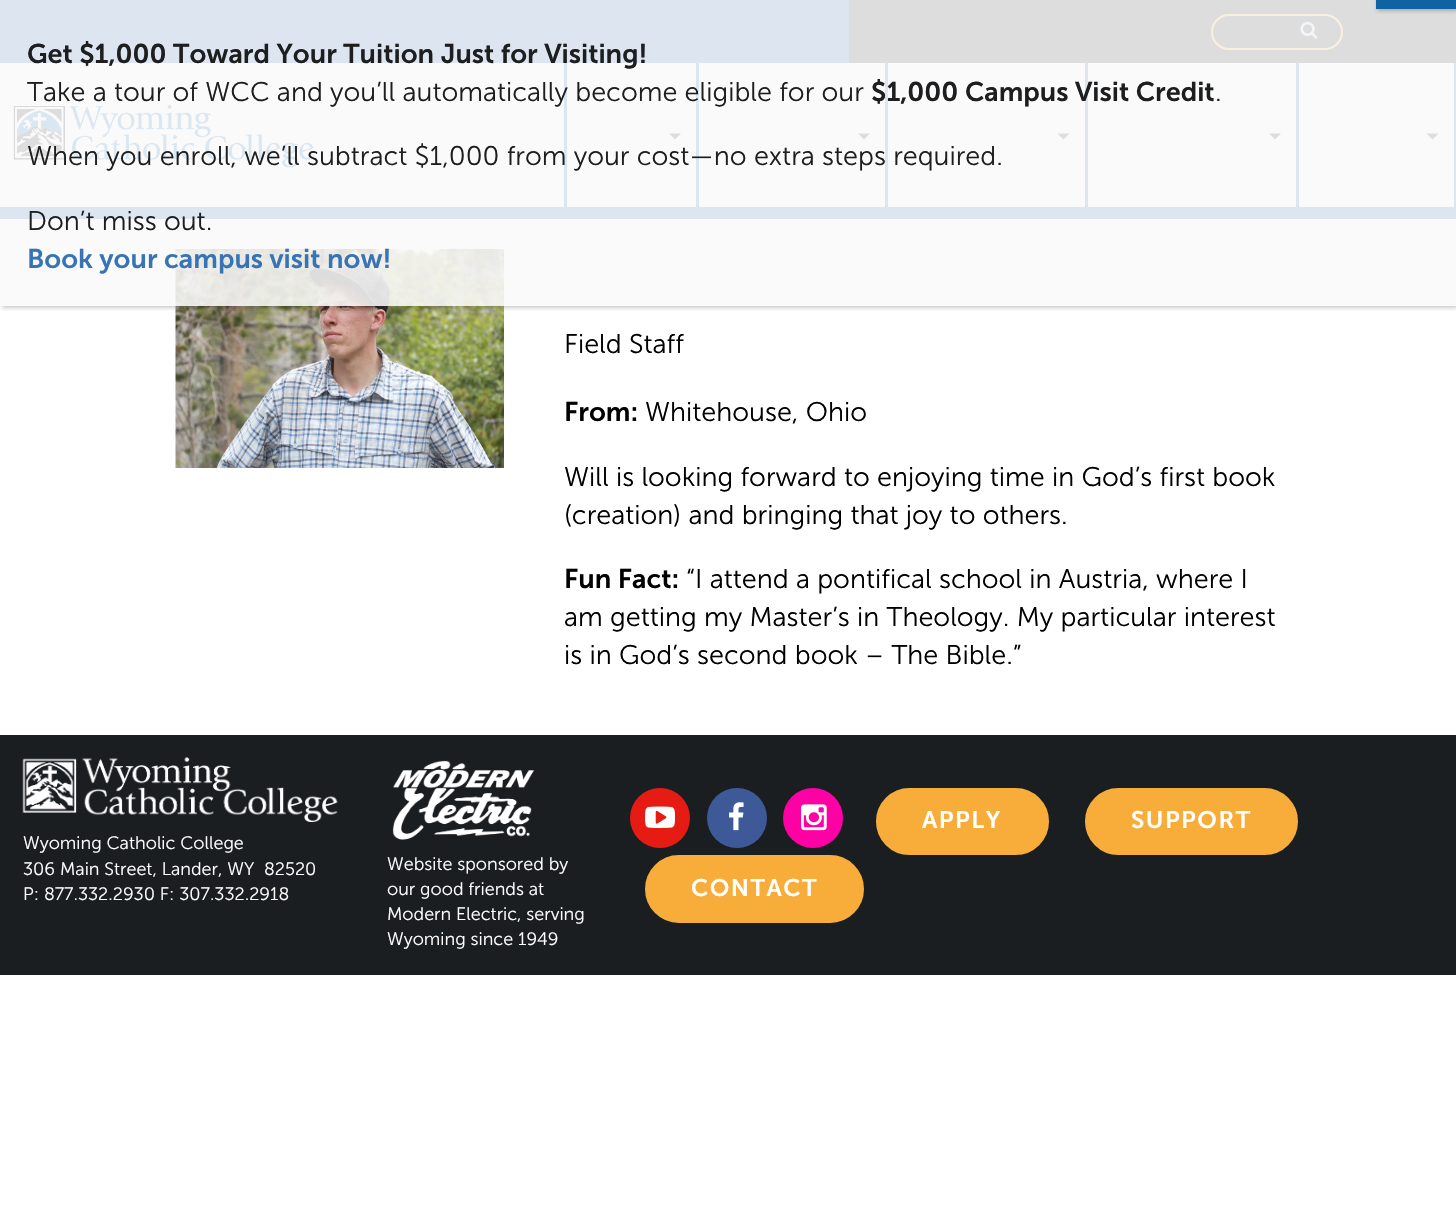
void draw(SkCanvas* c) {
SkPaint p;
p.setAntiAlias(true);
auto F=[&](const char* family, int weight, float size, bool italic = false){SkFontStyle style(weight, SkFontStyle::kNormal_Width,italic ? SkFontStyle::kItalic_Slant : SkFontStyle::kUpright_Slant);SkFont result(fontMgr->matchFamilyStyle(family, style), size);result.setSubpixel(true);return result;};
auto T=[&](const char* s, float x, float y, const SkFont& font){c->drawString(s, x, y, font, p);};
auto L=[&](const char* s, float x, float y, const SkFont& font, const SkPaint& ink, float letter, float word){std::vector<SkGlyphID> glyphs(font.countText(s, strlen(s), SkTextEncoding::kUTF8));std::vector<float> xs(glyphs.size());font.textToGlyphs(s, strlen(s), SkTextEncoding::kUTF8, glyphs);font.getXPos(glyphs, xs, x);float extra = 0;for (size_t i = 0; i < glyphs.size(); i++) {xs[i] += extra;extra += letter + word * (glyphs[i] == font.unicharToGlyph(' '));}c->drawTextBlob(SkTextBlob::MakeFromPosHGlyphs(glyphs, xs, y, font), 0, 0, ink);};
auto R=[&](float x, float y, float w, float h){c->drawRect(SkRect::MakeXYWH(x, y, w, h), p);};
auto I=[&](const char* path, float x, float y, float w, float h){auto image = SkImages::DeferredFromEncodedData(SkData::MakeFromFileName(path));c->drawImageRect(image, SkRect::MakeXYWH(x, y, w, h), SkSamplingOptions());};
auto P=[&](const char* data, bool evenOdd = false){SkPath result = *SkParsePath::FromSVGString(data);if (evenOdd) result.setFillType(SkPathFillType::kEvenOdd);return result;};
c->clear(0xffffffff);
p.setColor(0xff1c61ac);
R(0,0,849,63);
p.setColor(0xff1a1e21);
R(849,0,607,63);
p.setStroke(true);
p.setStrokeWidth(2);
p.setColor(0xfff8ad3a);
c->drawRoundRect(SkRect::MakeXYWH(1212,15,130,34),17,17,p);
I("1.png",1300,21,18,18);
p.setStroke(false);
p.setColor(0xff1c61ac);
R(0,207,1456,12);
I("2.png",13,104,301,64);
R(696,63,3,144);
R(564,63,3,144);
p.setColor(0xff1a1e21);
c->drawPath(P("M669 133.5h12l-6 6z"),p);
p.setColor(0xff1c61ac);
R(885,63,3,144);
p.setColor(0xff1a1e21);
c->drawPath(P("M858 133.5h12l-6 6z"),p);
p.setColor(0xff1c61ac);
R(1085,63,3,144);
p.setColor(0xff1a1e21);
c->drawPath(P("M1057.5 133.5h12l-6 6z"),p);
p.setColor(0xff1c61ac);
R(1296,63,3,144);
p.setColor(0xff1a1e21);
c->drawPath(P("M1269 133.5h12l-6 6z"),p);
p.setColor(0xff1c61ac);
R(1454,63,2,144);
p.setColor(0xff1a1e21);
c->drawPath(P("M1426.5 133.5h12l-6 6z"),p);
I("3.png",175,249,329,219);
c->save();
c->clipRect(SkRect::MakeXYWH(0,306,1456,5));
p.setColor(0x33020202);
p.setMaskFilter(SkMaskFilter::MakeBlur(kNormal_SkBlurStyle, 2));
c->drawRect(SkRect::MakeXYWH(2,-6,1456,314),p);
p.setMaskFilter(nullptr);
c->restore();
p.setColor(0xdef9f9f9);
R(0,0,1456,306);
p.setColor(0x3b050606);
p.setMaskFilter(SkMaskFilter::MakeBlur(kNormal_SkBlurStyle, 2));
c->drawRect(SkRect::MakeXYWH(1377,-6,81,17),p);
p.setMaskFilter(nullptr);
p.setColor(0xff1063a3);
R(1376,0,80,9);
auto f1 = F("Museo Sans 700",600,27);
p.setColor(0xff1d1e20);
T("Get $1,000 Toward Your Tuition Just for Visiting!",27,63,f1);
auto f2 = F("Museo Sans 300",300,27);
T("Take a tour of WCC and you’ll automatically become eligible for our",27,101,f2);
T("$1,000 Campus Visit Credit",871,101,f1);
T(".",1215,101,f2);
T("When you enroll, we’ll subtract $1,000 from your cost—no extra steps required.",27,165,f2);
T("Don’t miss out.",27,230,f2);
p.setColor(0xff3874b5);
T("Book your campus visit now!",27,268,f1);
p.setColor(0xff000000);
T("Field Staff",564,353,f2);
T("From:",564,421,f1);
T("Whitehouse, Ohio",645,421,f2);
T("Will is looking forward to enjoying time in God’s first book",564,486,f2);
T("(creation) and bringing that joy to others.",564,524,f2);
T("Fun Fact:",564,588,f1);
T("“I attend a pontifical school in Austria, where I",686,588,f2);
T("am getting my Master’s in Theology. My particular interest",564,626,f2);
T("is in God’s second book – The Bible.”",564,664,f2);
p.setColor(0xff1a1e21);
R(0,735,1456,240);
I("4.png",22,757,316,65);
auto f3 = F("Museo Sans 300",300,18);
p.setColor(0xffffffff);
T("Wyoming Catholic College",23,849,f3);
T("306 Main Street, Lander, WY  82520",23,875,f3);
T("P: 877.332.2930 F: 307.332.2918",23,900,f3);
I("5.png",392,760,143,80);
T("Website sponsored by",387,870,f3);
T("our good friends at",387,895,f3);
T("Modern Electric, serving",387,920,f3);
T("Wyoming since 1949",387,945,f3);
p.setColor(0xffe61c14);
c->drawCircle(660,818,30,p);
I("6.png",645,806,30,22);
p.setColor(0xff3d5998);
c->drawCircle(737,818,30,p);
I("7.png",729,802,15,29);
p.setColor(0xffff00a5);
c->drawCircle(813,818,30,p);
I("8.png",801,804,26,27);
p.setColor(0xfff8ad3a);
c->drawRoundRect(SkRect::MakeXYWH(877,789,171,65),32.5,32.5,p);
p.setStroke(true);
c->drawRoundRect(SkRect::MakeXYWH(877,789,171,65),32.5,32.5,p);
auto f4 = F("Museo Sans 700",600,24);
p.setStroke(false);
p.setColor(0xffffffff);
L("APPLY",922,828,f4,p,1.5,0);
p.setColor(0xfff8ad3a);
c->drawRoundRect(SkRect::MakeXYWH(1086,789,211,65),32.5,32.5,p);
p.setStroke(true);
c->drawRoundRect(SkRect::MakeXYWH(1086,789,211,65),32.5,32.5,p);
p.setStroke(false);
p.setColor(0xffffffff);
L("SUPPORT",1131,828,f4,p,1.5,0);
p.setColor(0xfff8ad3a);
c->drawRoundRect(SkRect::MakeXYWH(646,856,217,66),33,33,p);
p.setStroke(true);
c->drawRoundRect(SkRect::MakeXYWH(646,856,217,66),33,33,p);
p.setStroke(false);
p.setColor(0xffffffff);
L("CONTACT",691,896,f4,p,1.5,0);
}
